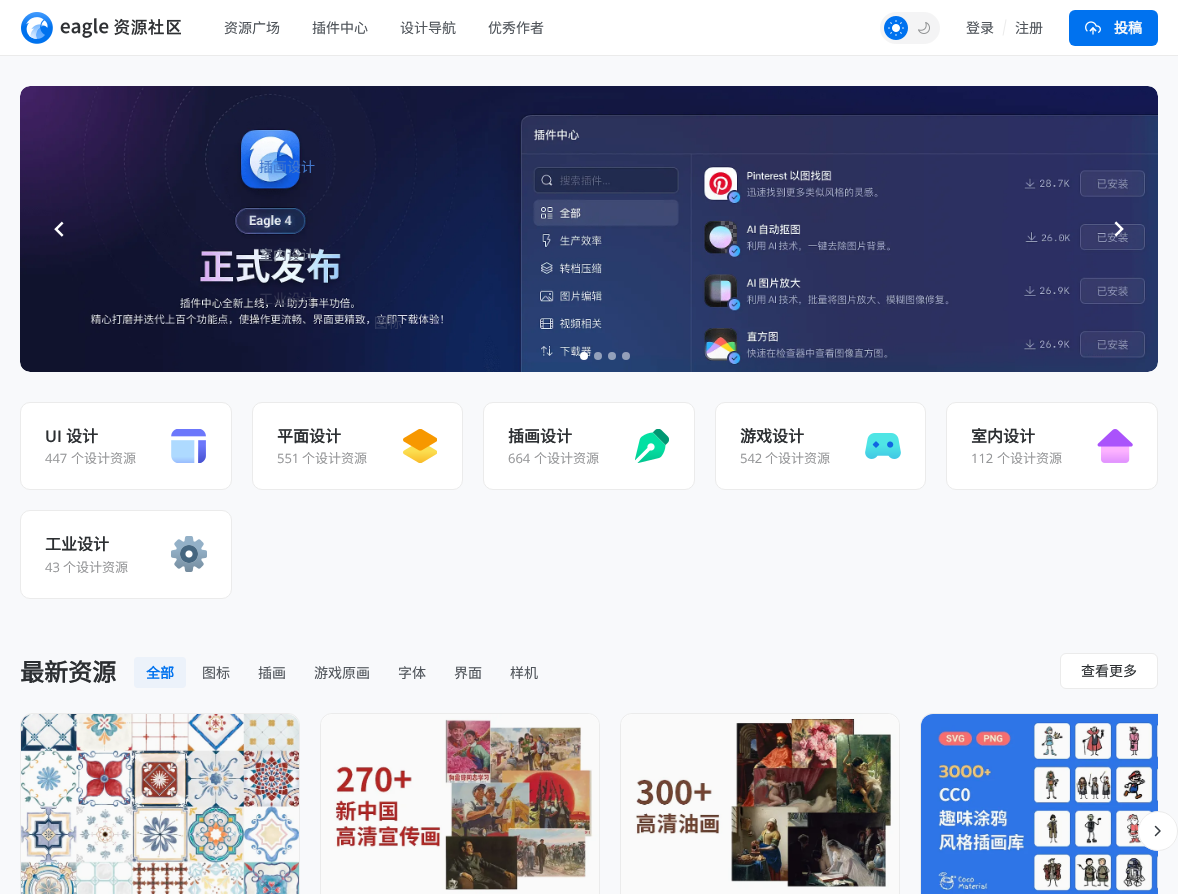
void draw(SkCanvas* c) {
SkPaint p;
p.setAntiAlias(true);
auto F=[&](const char* family, int weight, float size, bool italic = false){SkFontStyle style(weight, SkFontStyle::kNormal_Width,italic ? SkFontStyle::kItalic_Slant : SkFontStyle::kUpright_Slant);SkFont result(fontMgr->matchFamilyStyle(family, style), size);result.setSubpixel(true);return result;};
auto T=[&](const char* s, float x, float y, const SkFont& font){c->drawString(s, x, y, font, p);};
auto R=[&](float x, float y, float w, float h){c->drawRect(SkRect::MakeXYWH(x, y, w, h), p);};
auto Q=[&](float x, float y, float w, float h, float radius){c->drawRoundRect(SkRect::MakeXYWH(x, y, w, h), radius, radius, p);};
auto I=[&](const char* path, float x, float y, float w, float h){auto image = SkImages::DeferredFromEncodedData(SkData::MakeFromFileName(path));c->drawImageRect(image, SkRect::MakeXYWH(x, y, w, h), SkSamplingOptions());};
auto P=[&](const char* data, bool evenOdd = false){SkPath result = *SkParsePath::FromSVGString(data);if (evenOdd) result.setFillType(SkPathFillType::kEvenOdd);return result;};
c->clear(0xfff8f9fb);
p.setColor(0xffffffff);
R(0,0,1178,55);
p.setColor(0xffebebeb);
R(0,55,1178,1);
I("1.png",21,12,160,32);
auto f1 = F("Noto Sans CJK SC",400,14);
p.setColor(0xff50555b);
T("资源广场",224,33,f1);
p.setColor(0xffffffff);
Q(20,86,1138,286,10);
I("4.png",20,86,1138,286);
p.setColor(0xff4479cc);
T("插画设计",259,172,f1);
p.setColor(0xff71788a);
T("室内设计",259,260,f1);
p.setColor(0xff2f324f);
T("工业设计",259,304,f1);
p.setColor(0xff313b61);
T("图标",374,328,f1);
p.setColor(0xff50555b);
T("插件中心",312,33,f1);
T("设计导航",400,33,f1);
T("优秀作者",488,33,f1);
I("2.png",880,12,60,32);
T("登录",966,33,f1);
p.setColor(0xffebebeb);
c->drawPath(P("M1005.5 19.5h1l-3 16h-1z"),p);
p.setColor(0xff50555b);
T("注册",1015,33,f1);
p.setColor(0xff0072ef);
Q(1069,10,89,36,6);
I("3.png",1085,21,16,14);
auto f2 = F("Noto Sans CJK SC",700,14);
p.setColor(0xfff8f9fa);
T("投稿",1114,33,f2);
I("5.png",54,221,10,16);
I("6.png",1114,221,10,16);
p.setColor(0xffffffff);
c->drawCircle(584,356,4,p);
p.setColor(0x80ffffff);
c->drawCircle(598,356,4,p);
c->drawCircle(612,356,4,p);
c->drawCircle(626,356,4,p);
p.setColor(0xffffffff);
c->drawRoundRect(SkRect::MakeXYWH(20.5,402.5,211,87),9.5,9.5,p);
p.setStroke(true);
p.setStrokeWidth(1);
p.setColor(0xffebebeb);
c->drawRoundRect(SkRect::MakeXYWH(20.5,402.5,211,87),9.5,9.5,p);
auto f3 = F("Open Sans",600,16);
p.setStroke(false);
p.setColor(0xff2c2f32);
T("UI",45,442,f3);
auto f4 = F("Noto Sans CJK SC",700,16);
T("设计",66,442,f4);
auto f5 = F("Open Sans",400,13);
p.setColor(0xff969799);
T("447",45,463,f5);
auto f6 = F("Noto Sans CJK SC",400,13);
T("个设计资源",71,463,f6);
I("7.png",171,429,35,34);
p.setColor(0xffffffff);
c->drawRoundRect(SkRect::MakeXYWH(252.5,402.5,210,87),9.5,9.5,p);
p.setStroke(true);
p.setColor(0xffebebeb);
c->drawRoundRect(SkRect::MakeXYWH(252.5,402.5,210,87),9.5,9.5,p);
p.setStroke(false);
p.setColor(0xff2c2f32);
T("平面设计",277,442,f4);
p.setColor(0xff969799);
T("551",277,463,f5);
T("个设计资源",302,463,f6);
I("8.png",403,429,34,34);
p.setColor(0xffffffff);
c->drawRoundRect(SkRect::MakeXYWH(483.5,402.5,211,87),9.5,9.5,p);
p.setStroke(true);
p.setColor(0xffebebeb);
c->drawRoundRect(SkRect::MakeXYWH(483.5,402.5,211,87),9.5,9.5,p);
p.setStroke(false);
p.setColor(0xff2c2f32);
T("插画设计",508,442,f4);
p.setColor(0xff969799);
T("664",508,463,f5);
T("个设计资源",534,463,f6);
I("9.png",635,429,34,34);
p.setColor(0xffffffff);
c->drawRoundRect(SkRect::MakeXYWH(715.5,402.5,210,87),9.5,9.5,p);
p.setStroke(true);
p.setColor(0xffebebeb);
c->drawRoundRect(SkRect::MakeXYWH(715.5,402.5,210,87),9.5,9.5,p);
p.setStroke(false);
p.setColor(0xff2c2f32);
T("游戏设计",740,442,f4);
p.setColor(0xff969799);
T("542",740,463,f5);
T("个设计资源",765,463,f6);
I("10.png",865,433,36,26);
p.setColor(0xffffffff);
c->drawRoundRect(SkRect::MakeXYWH(946.5,402.5,211,87),9.5,9.5,p);
p.setStroke(true);
p.setColor(0xffebebeb);
c->drawRoundRect(SkRect::MakeXYWH(946.5,402.5,211,87),9.5,9.5,p);
p.setStroke(false);
p.setColor(0xff2c2f32);
T("室内设计",971,442,f4);
p.setColor(0xff969799);
T("112",971,463,f5);
T("个设计资源",997,463,f6);
I("11.png",1097,429,36,34);
p.setColor(0xffffffff);
c->drawRoundRect(SkRect::MakeXYWH(20.5,510.5,211,88),9.5,9.5,p);
p.setStroke(true);
p.setColor(0xffebebeb);
c->drawRoundRect(SkRect::MakeXYWH(20.5,510.5,211,88),9.5,9.5,p);
p.setStroke(false);
p.setColor(0xff2c2f32);
T("工业设计",45,550,f4);
p.setColor(0xff969799);
T("43",45,572,f5);
T("个设计资源",63,572,f6);
I("12.png",171,536,36,36);
auto f7 = F("Noto Sans CJK SC",700,24);
p.setColor(0xff2c2f32);
T("最新资源",20,681,f7);
p.setColor(0xffecf2fa);
Q(134,657,52,31,4);
p.setColor(0xff0072ef);
T("全部",146,678,f2);
p.setColor(0xff50555b);
T("图标",202,678,f1);
T("插画",258,678,f1);
T("游戏原画",314,678,f1);
T("字体",398,678,f1);
T("界面",454,678,f1);
T("样机",510,678,f1);
p.setColor(0xffffffff);
c->drawRoundRect(SkRect::MakeXYWH(1060.5,653.5,97,35),5.5,5.5,p);
p.setStroke(true);
p.setColor(0xffebebeb);
c->drawRoundRect(SkRect::MakeXYWH(1060.5,653.5,97,35),5.5,5.5,p);
p.setStroke(false);
p.setColor(0xff2c2f32);
T("查看更多",1081,676,f1);
p.setColor(0xffffffff);
c->drawRoundRect(SkRect::MakeXYWH(20.5,713.5,279,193),11.5,11.5,p);
p.setStroke(true);
p.setColor(0xffebebeb);
c->drawRoundRect(SkRect::MakeXYWH(20.5,713.5,279,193),11.5,11.5,p);
I("13.png",21,714,278,180);
p.setStroke(false);
p.setColor(0xffffffff);
c->drawRoundRect(SkRect::MakeXYWH(320.5,713.5,279,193),11.5,11.5,p);
p.setStroke(true);
p.setColor(0xffebebeb);
c->drawRoundRect(SkRect::MakeXYWH(320.5,713.5,279,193),11.5,11.5,p);
I("14.png",321,714,278,180);
p.setStroke(false);
p.setColor(0xffffffff);
c->drawRoundRect(SkRect::MakeXYWH(620.5,713.5,279,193),11.5,11.5,p);
p.setStroke(true);
p.setColor(0xffebebeb);
c->drawRoundRect(SkRect::MakeXYWH(620.5,713.5,279,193),11.5,11.5,p);
I("15.png",621,714,278,180);
p.setStroke(false);
p.setColor(0xffffffff);
c->drawPath(P("M932 713h226v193h-226c-6.5 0-12-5.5-12-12v-169c0-6.5 5.5-12 12-12z"),p);
c->save();
c->clipRect(SkRect::MakeXYWH(20,713,1138,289));
p.setStroke(true);
p.setColor(0xffebebeb);
c->drawRoundRect(SkRect::MakeXYWH(920.5,713.5,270,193),11.5,11.5,p);
c->restore();
I("16.png",921,714,237,180);
p.setStroke(false);
p.setColor(0xffffffff);
c->drawPath(P("M1138 831c0-26 40-26 40 0c0 26-40 26-40 0z"),p);
p.setStroke(true);
p.setStrokeWidth(1.5);
p.setStrokeCap(SkPaint::kRound_Cap);
p.setStrokeJoin(SkPaint::kRound_Join);
p.setColor(0xff343a40);
c->drawPath(P("M1155.5 835.5l4.5-4.5l-4.5-4.5"),p);
p.setStrokeWidth(1);
p.setStrokeCap(SkPaint::kButt_Cap);
p.setStrokeJoin(SkPaint::kMiter_Join);
p.setColor(0xffebebeb);
c->drawPath(P("M1138.5 831c0-10.5 8.5-19.5 19.5-19.5c11 0 19.5 9 19.5 19.5c0 11-8.5 19.5-19.5 19.5c-11 0-19.5-8.5-19.5-19.5z"),p);
}
